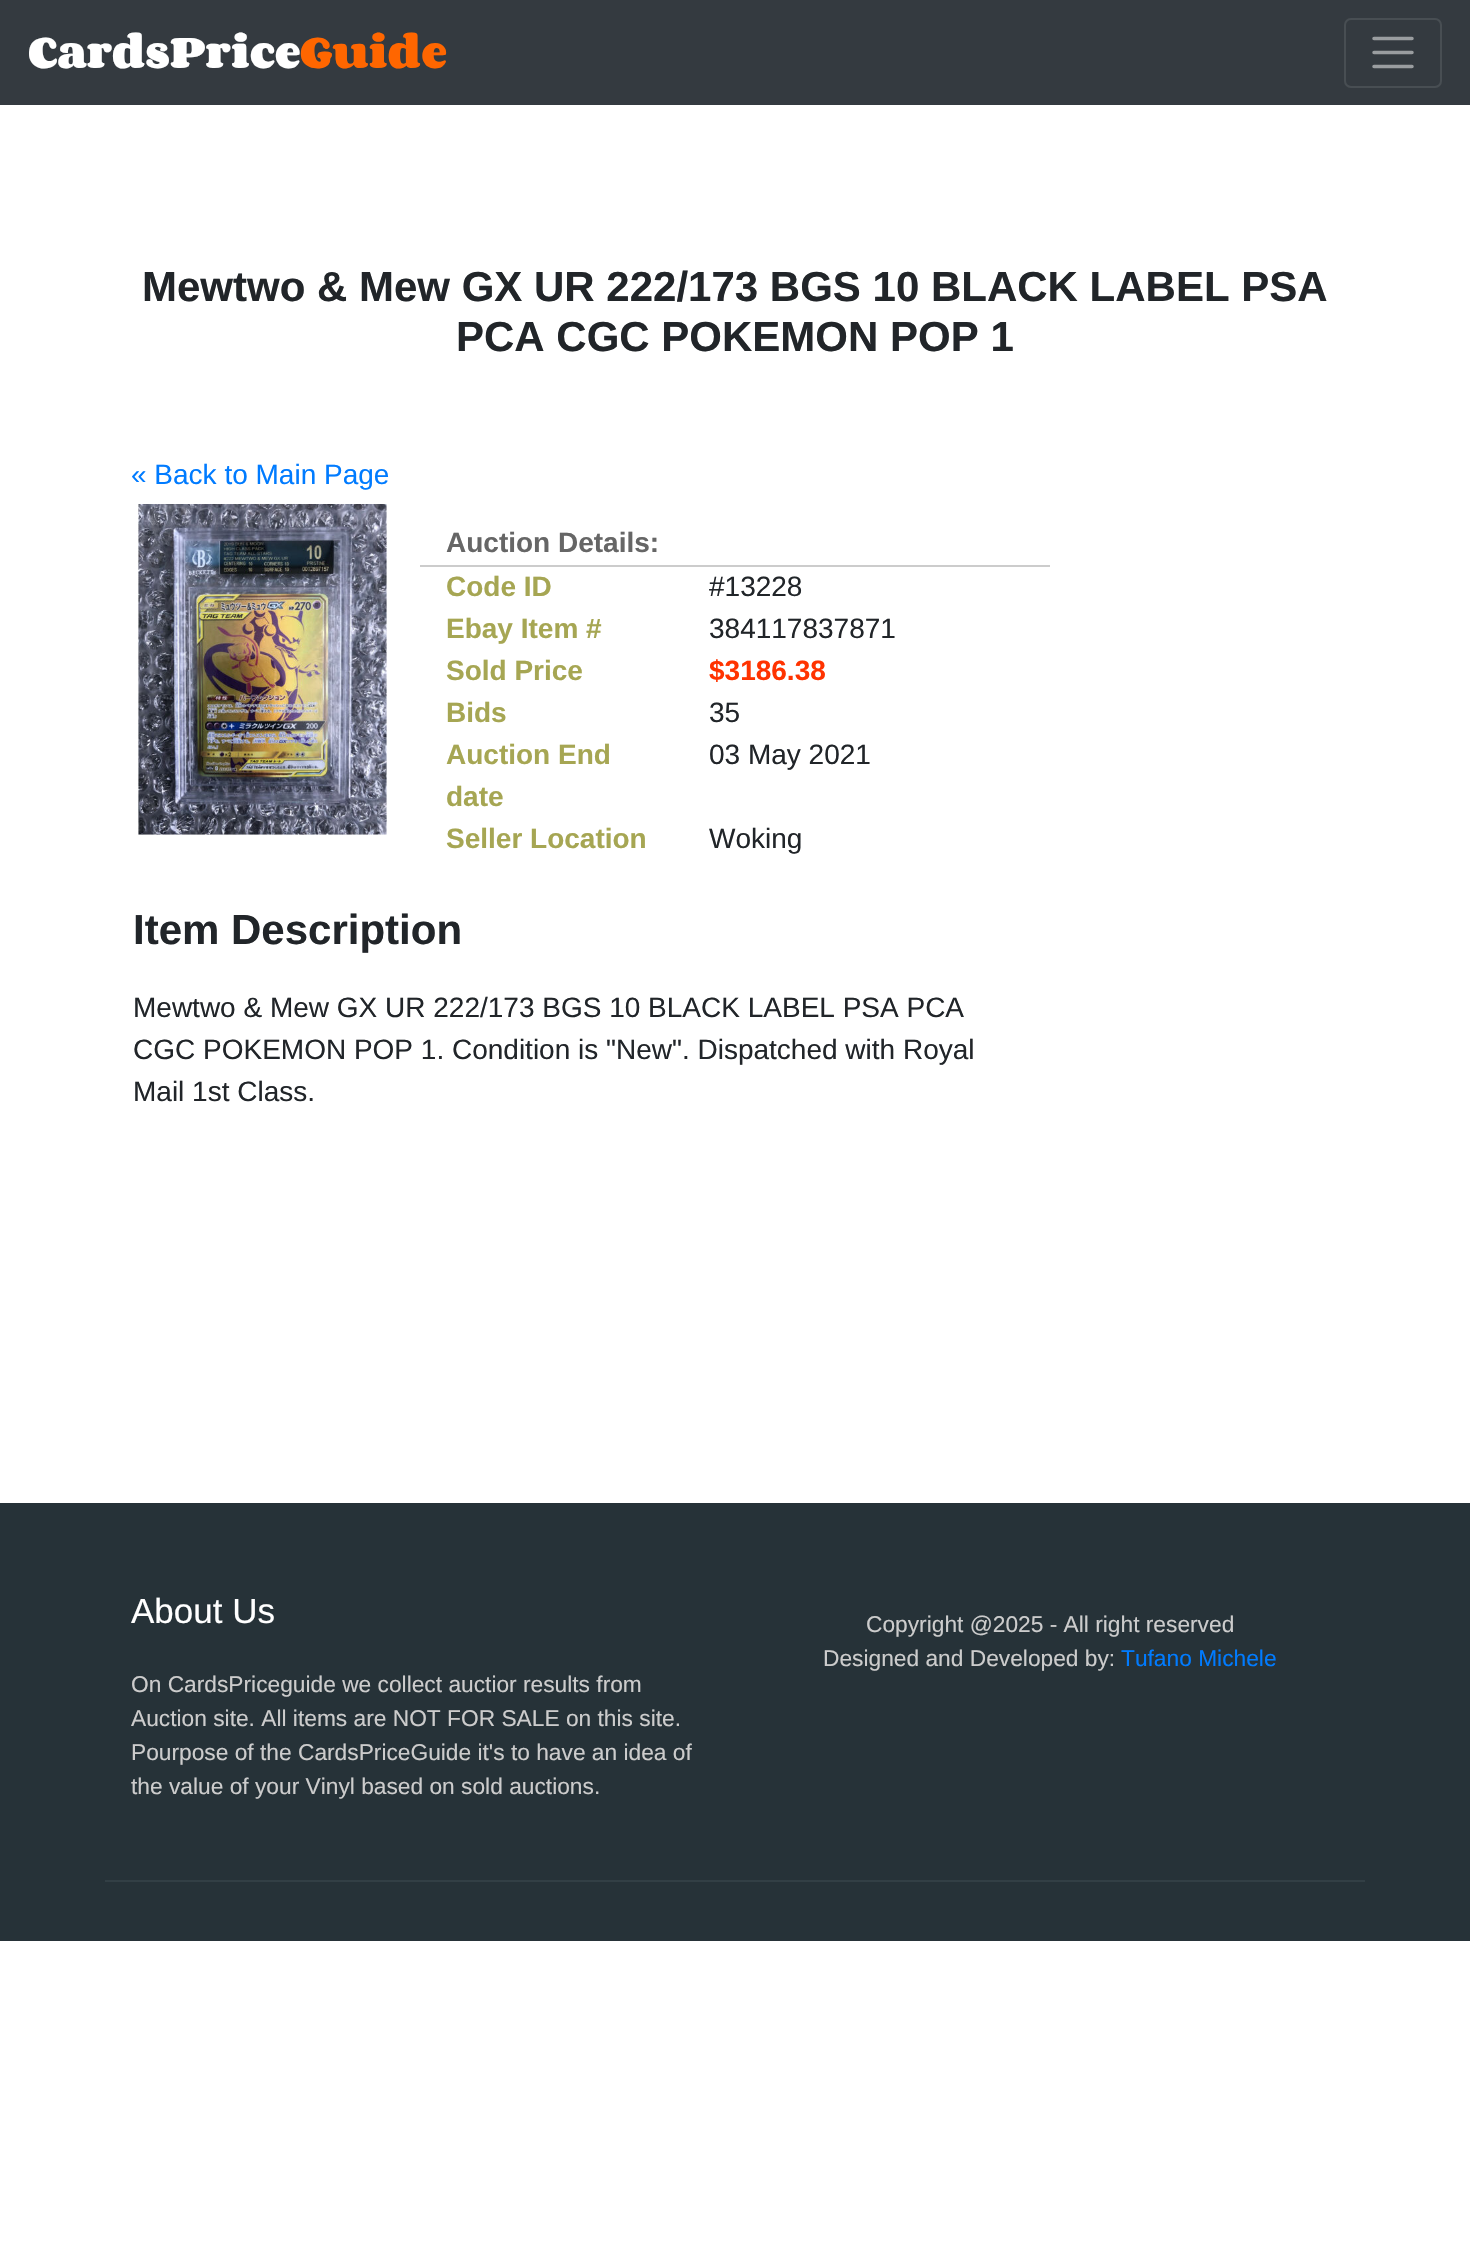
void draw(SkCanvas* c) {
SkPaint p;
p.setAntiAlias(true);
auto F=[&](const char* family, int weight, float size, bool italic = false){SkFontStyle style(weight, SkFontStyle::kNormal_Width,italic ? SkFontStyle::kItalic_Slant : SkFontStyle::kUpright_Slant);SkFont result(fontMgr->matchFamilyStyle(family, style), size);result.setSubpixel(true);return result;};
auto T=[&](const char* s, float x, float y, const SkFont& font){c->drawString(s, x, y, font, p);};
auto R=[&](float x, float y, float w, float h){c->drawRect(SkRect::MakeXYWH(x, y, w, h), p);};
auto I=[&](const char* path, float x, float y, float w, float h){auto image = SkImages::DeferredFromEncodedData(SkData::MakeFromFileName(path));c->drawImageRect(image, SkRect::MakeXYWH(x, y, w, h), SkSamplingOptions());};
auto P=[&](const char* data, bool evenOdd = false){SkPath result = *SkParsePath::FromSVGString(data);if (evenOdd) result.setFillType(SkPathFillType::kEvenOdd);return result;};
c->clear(0xffffffff);
p.setColor(0xff343a40);
R(0,0,1470,105);
auto f1 = F("Corben",700,38.5);
p.setColor(0xffffffff);
T("CardsPrice",28,68,f1);
p.setColor(0xffff6600);
T("Guide",300,68,f1);
p.setStroke(true);
p.setStrokeWidth(2);
p.setColor(0xff484e53);
c->drawRoundRect(SkRect::MakeXYWH(1345,19,96,68),6,6,p);
p.setStrokeWidth(3.5);
p.setStrokeCap(SkPaint::kRound_Cap);
p.setColor(0xff9a9da0);
c->drawPath(P("M1374 38.5h38m-38 14h38m-38 14h38"),p);
auto f2 = F("Liberation Sans",700,42);
p.setStroke(false);
p.setColor(0xff212529);
T("Mewtwo & Mew GX UR 222/173 BGS 10 BLACK LABEL PSA",142,301,f2);
T("PCA CGC POKEMON POP 1",456,351,f2);
auto f3 = F("Liberation Sans",400,28);
p.setColor(0xff007bff);
T("« Back to Main Page",131,484,f3);
I("1.png",138,504,249,331);
p.setColor(0xffcccccc);
R(420,565,630,2);
auto f4 = F("Liberation Sans",700,28);
p.setColor(0xff666666);
T("Auction Details:",446,552,f4);
p.setColor(0xffa6a653);
T("Code ID",446,596,f4);
p.setColor(0xff212529);
T("#13228",709,596,f3);
p.setColor(0xffa6a653);
T("Ebay Item #",446,638,f4);
p.setColor(0xff212529);
T("384117837871",709,638,f3);
p.setColor(0xffa6a653);
T("Sold Price",446,680,f4);
p.setColor(0xffff3300);
T("$3186.38",709,680,f4);
p.setColor(0xffa6a653);
T("Bids",446,722,f4);
p.setColor(0xff212529);
T("35",709,722,f3);
p.setColor(0xffa6a653);
T("Auction End",446,764,f4);
T("date",446,806,f4);
p.setColor(0xff212529);
T("03 May 2021",709,764,f3);
p.setColor(0xffa6a653);
T("Seller Location",446,848,f4);
p.setColor(0xff212529);
T("Woking",709,848,f3);
T("Item Description",133,944,f2);
T("Mewtwo & Mew GX UR 222/173 BGS 10 BLACK LABEL PSA PCA",133,1017,f3);
T("CGC POKEMON POP 1. Condition is \"New\". Dispatched with Royal",133,1059,f3);
T("Mail 1st Class.",133,1101,f3);
p.setColor(0xff263238);
R(0,1503,1470,438);
p.setColor(0xff323f45);
R(105,1880,1260,2);
auto f5 = F("Liberation Sans",400,35);
p.setColor(0xffffffff);
T("About Us",131,1623,f5);
auto f6 = F("Liberation Sans",400,22.75);
p.setColor(0xffcccccc);
T("On CardsPriceguide we collect auctior results from",131,1692,f6);
T("Auction site. All items are NOT FOR SALE on this site.",131,1726,f6);
T("Pourpose of the CardsPriceGuide it's to have an idea of",131,1760,f6);
T("the value of your Vinyl based on sold auctions.",131,1794,f6);
T("Copyright @2025 - All right reserved",866,1632,f6);
T("Designed and Developed by:",823,1666,f6);
p.setColor(0xff007bff);
T("Tufano Michele",1121,1666,f6);
}
